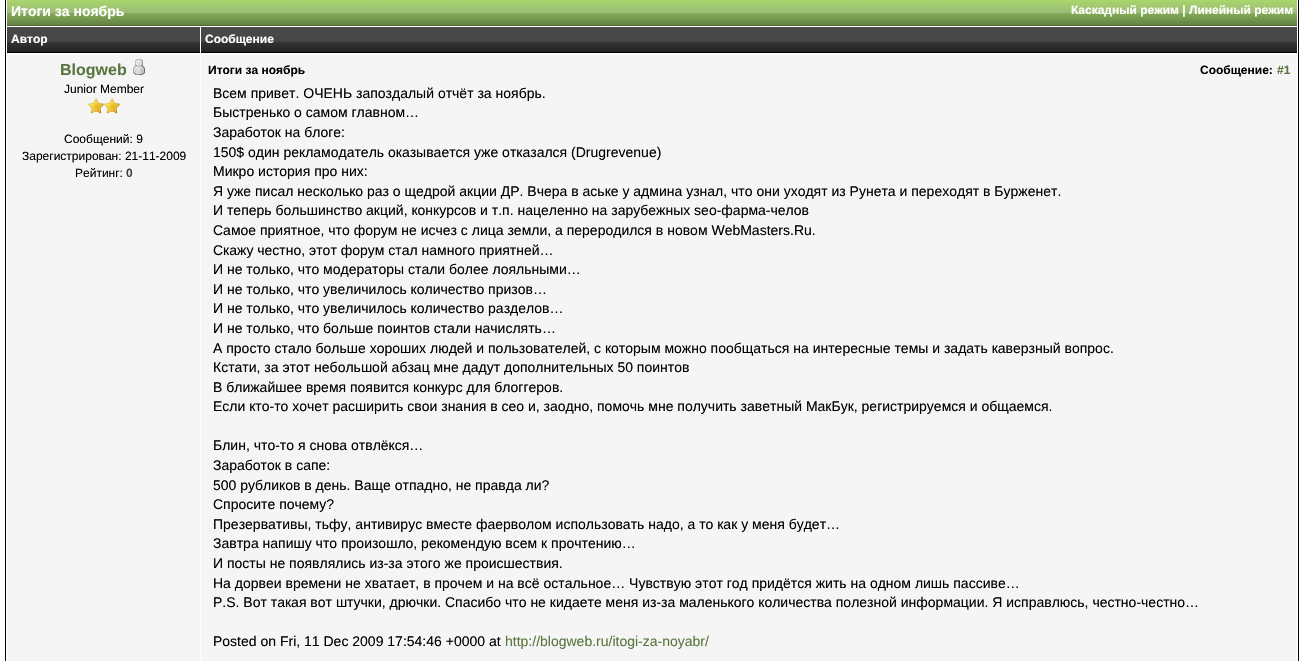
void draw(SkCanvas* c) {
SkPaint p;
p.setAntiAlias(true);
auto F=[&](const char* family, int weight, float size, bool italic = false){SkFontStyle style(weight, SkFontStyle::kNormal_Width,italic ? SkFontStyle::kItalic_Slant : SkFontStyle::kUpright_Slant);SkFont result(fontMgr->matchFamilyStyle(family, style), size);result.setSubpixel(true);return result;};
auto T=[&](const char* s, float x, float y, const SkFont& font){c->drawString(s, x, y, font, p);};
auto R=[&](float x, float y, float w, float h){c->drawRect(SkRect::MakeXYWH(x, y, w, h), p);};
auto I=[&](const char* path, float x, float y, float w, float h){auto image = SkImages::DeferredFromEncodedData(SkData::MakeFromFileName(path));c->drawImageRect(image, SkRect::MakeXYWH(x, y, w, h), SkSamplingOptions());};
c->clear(0xffffffff);
p.setColor(0xff000000);
R(1298,0,1,661);
R(5,0,1,661);
I("1.png",7,0,1290,25);
p.setColor(0xff4e6533);
R(7,25,1290,1);
auto f1 = F("Liberation Sans",700,14);
p.setColor(0xffffffff);
T("Итоги за ноябрь",11,16,f1);
auto f2 = F("Liberation Sans",700,12);
T("Каскадный режим | Линейный режим",1071,14,f2);
I("2.png",7,27,193,25);
p.setColor(0xff000000);
R(7,52,193,1);
p.setColor(0xffffffff);
T("Автор",11,43,f2);
I("3.png",201,27,1096,25);
p.setColor(0xff000000);
R(201,52,1096,1);
p.setColor(0xffffffff);
T("Сообщение",205,43,f2);
p.setColor(0xfff5f5f5);
R(7,55,193,606);
auto f3 = F("Liberation Sans",700,16);
p.setColor(0xff5a763f);
T("Blogweb",60,75,f3);
I("4.png",133,59,12,16);
auto f4 = F("Liberation Sans",400,12);
p.setColor(0xff000000);
T("Junior Member",64,93,f4);
I("5.png",88,98,16,16);
I("5.png",104,98,16,16);
T("Сообщений: 9",64,143,f4);
T("Зарегистрирован: 21-11-2009",22,160,f4);
T("Рейтинг:",75,177,f4);
p.setColor(0xff444444);
T("0",126,177,f2);
p.setColor(0xfff5f5f5);
R(201,55,1096,606);
p.setColor(0xff000000);
T("Итоги за ноябрь",208,74,f2);
T("Сообщение:",1200,74,f2);
p.setColor(0xff5a763f);
T("#1",1277,74,f2);
auto f5 = F("Liberation Sans",400,14);
p.setColor(0xff000000);
T("Всем привет. ОЧЕНЬ запоздалый отчёт за ноябрь.",213,98,f5);
T("Быстренько о самом главном…",213,117,f5);
T("Заработок на блоге:",213,137,f5);
T("150$ один рекламодатель оказывается уже отказался (Drugrevenue)",213,157,f5);
T("Микро история про них:",213,176,f5);
T("Я уже писал несколько раз о щедрой акции ДР. Вчера в аське у админа узнал, что они уходят из Рунета и переходят в Бурженет.",213,196,f5);
T("И теперь большинство акций, конкурсов и т.п. нацеленно на зарубежных seo-фарма-челов",213,215,f5);
T("Самое приятное, что форум не исчез с лица земли, а переродился в новом WebMasters.Ru.",213,235,f5);
T("Скажу честно, этот форум стал намного приятней…",213,255,f5);
T("И не только, что модераторы стали более лояльными…",213,274,f5);
T("И не только, что увеличилось количество призов…",213,294,f5);
T("И не только, что увеличилось количество разделов…",213,313,f5);
T("И не только, что больше поинтов стали начислять…",213,333,f5);
T("А просто стало больше хороших людей и пользователей, с которым можно пообщаться на интересные темы и задать каверзный вопрос.",213,353,f5);
T("Кстати, за этот небольшой абзац мне дадут дополнительных 50 поинтов",213,372,f5);
T("В ближайшее время появится конкурс для блоггеров.",213,392,f5);
T("Если кто-то хочет расширить свои знания в сео и, заодно, помочь мне получить заветный МакБук, регистрируемся и общаемся.",213,411,f5);
T("Блин, что-то я снова отвлёкся…",213,450,f5);
T("Заработок в сапе:",213,470,f5);
T("500 рубликов в день. Ваще отпадно, не правда ли?",213,490,f5);
T("Спросите почему?",213,509,f5);
T("Презервативы, тьфу, антивирус вместе фаерволом использовать надо, а то как у меня будет…",213,529,f5);
T("Завтра напишу что произошло, рекомендую всем к прочтению…",213,548,f5);
T("И посты не появлялись из-за этого же происшествия.",213,568,f5);
T("На дорвеи времени не хватает, в прочем и на всё остальное… Чувствую этот год придётся жить на одном лишь пассиве…",213,588,f5);
T("P.S. Вот такая вот штучки, дрючки. Спасибо что не кидаете меня из-за маленького количества полезной информации. Я исправлюсь, честно-честно…",213,607,f5);
T("Posted on Fri, 11 Dec 2009 17:54:46 +0000 at",213,646,f5);
p.setColor(0xff5a763f);
T("http://blogweb.ru/itogi-za-noyabr/",505,646,f5);
}
